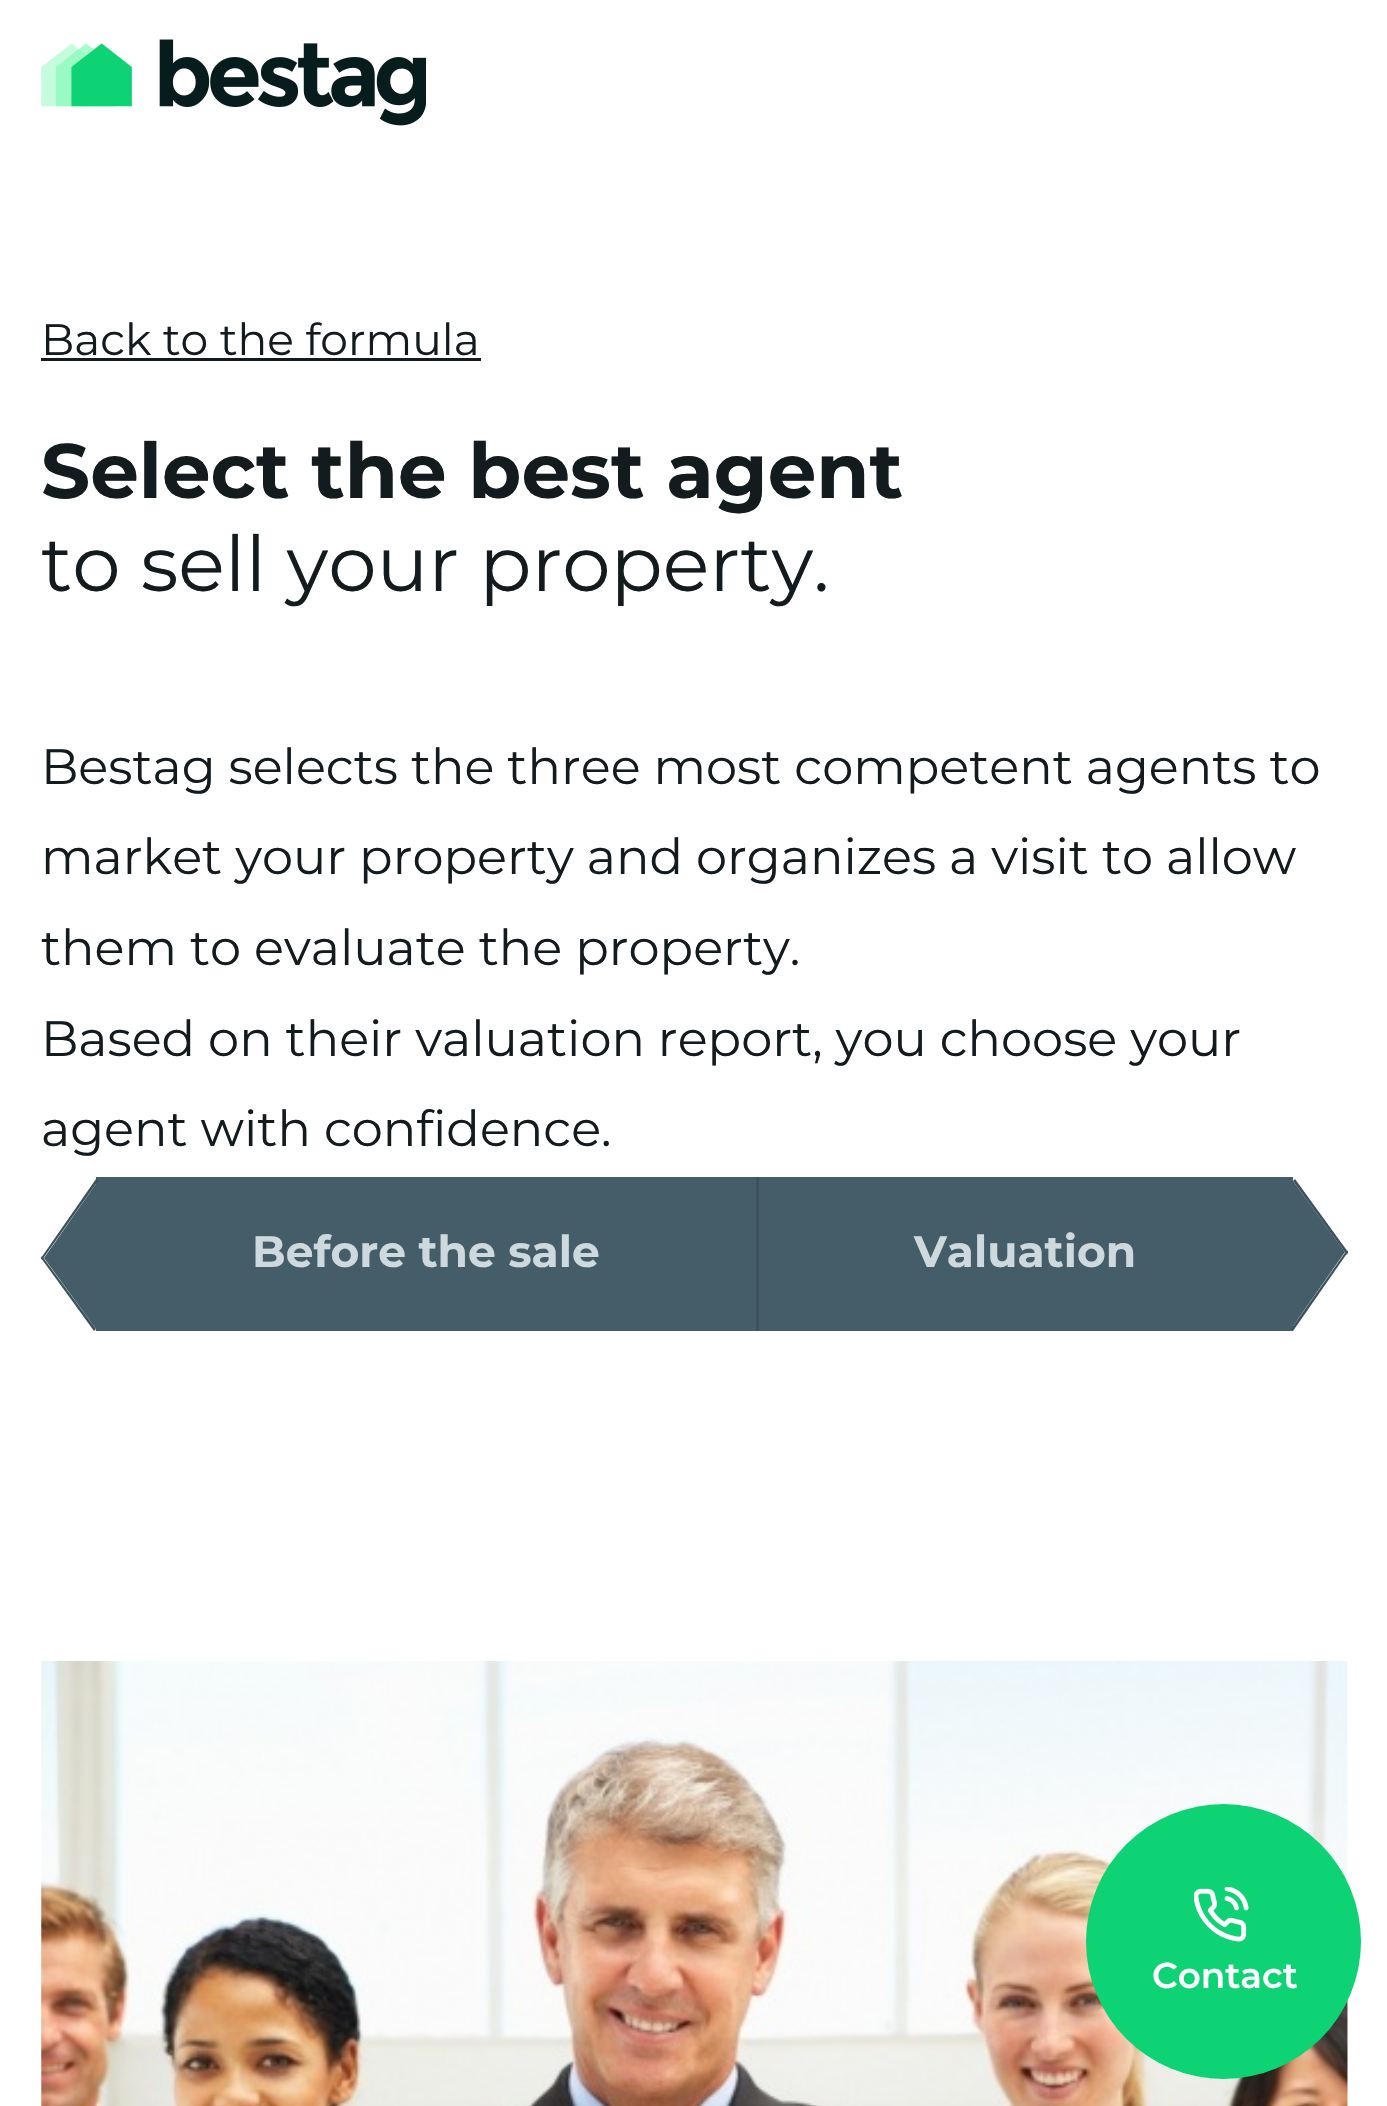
void draw(SkCanvas* c) {
SkPaint p;
p.setAntiAlias(true);
auto F=[&](const char* family, int weight, float size, bool italic = false){SkFontStyle style(weight, SkFontStyle::kNormal_Width,italic ? SkFontStyle::kItalic_Slant : SkFontStyle::kUpright_Slant);SkFont result(fontMgr->matchFamilyStyle(family, style), size);result.setSubpixel(true);return result;};
auto T=[&](const char* s, float x, float y, const SkFont& font){c->drawString(s, x, y, font, p);};
auto R=[&](float x, float y, float w, float h){c->drawRect(SkRect::MakeXYWH(x, y, w, h), p);};
auto I=[&](const char* path, float x, float y, float w, float h){auto image = SkImages::DeferredFromEncodedData(SkData::MakeFromFileName(path));c->drawImageRect(image, SkRect::MakeXYWH(x, y, w, h), SkSamplingOptions());};
auto P=[&](const char* data, bool evenOdd = false){SkPath result = *SkParsePath::FromSVGString(data);if (evenOdd) result.setFillType(SkPathFillType::kEvenOdd);return result;};
c->clear(0xffffffff);
I("1.png",41,39,385,87);
auto f1 = F("Montserrat",400,44);
p.setColor(0xff141b1f);
T("Back to the formula",41,355,f1);
R(41,358,440,3);
auto f2 = F("Montserrat",700,77);
T("Select the best agent",41,498,f2);
auto f3 = F("Montserrat",400,77);
T("to sell your property.",41,591,f3);
auto f4 = F("Montserrat",400,49.5);
T("Bestag selects the three most competent agents to",41,784,f4);
T("market your property and organizes a visit to allow",41,874,f4);
T("them to evaluate the property.",41,965,f4);
T("Based on their valuation report, you choose your",41,1056,f4);
T("agent with confidence.",41,1146,f4);
p.setColor(0xff455d68);
R(96,1177,660,154);
p.setColor(0xff3d525c);
R(756,1177,3,154);
p.setColor(0xff455d68);
c->drawPath(P("M44 1258l54-77l51 71l-53 77z"),p);
p.setColor(0xff3d525c);
c->drawPath(P("M41 1258l55-79l2 2l-56 79z"),p);
c->drawPath(P("M41 1258l1-2l54 73l-2 2z"),p);
auto f5 = F("Montserrat",700,44);
p.setColor(0xffced9de);
T("Before the sale",252,1267,f5);
p.setColor(0xff455d68);
R(759,1177,534,154);
p.setColor(0xffced9de);
T("Valuation",914,1267,f5);
p.setColor(0xff455d68);
c->drawPath(P("M1240 1258l53-77l52 71l-54 77z"),p);
p.setColor(0xff3d525c);
c->drawPath(P("M1293 1181l2-2l53 73l-1 3z"),p);
c->drawPath(P("M1291 1329l56-79l1 2l-55 79z"),p);
I("2.png",41,1661,1307,445);
p.setColor(0xff0dd375);
c->drawCircle(1223.5,1941.5,137.5,p);
I("3.png",1194,1887,55,55);
auto f6 = F("Montserrat",600,35.75);
p.setColor(0xffffffff);
T("Contact",1152,1988,f6);
}
